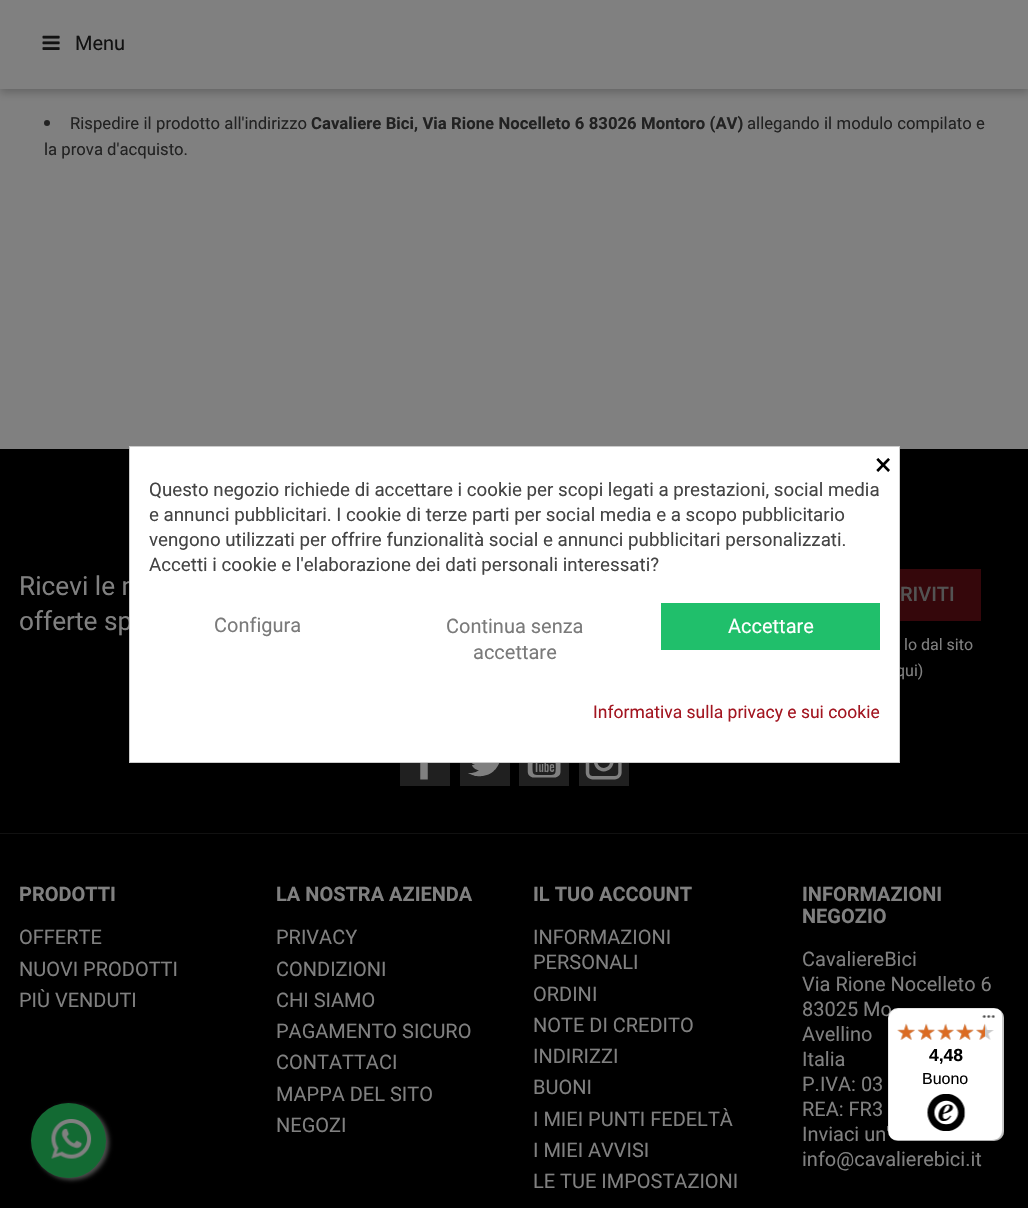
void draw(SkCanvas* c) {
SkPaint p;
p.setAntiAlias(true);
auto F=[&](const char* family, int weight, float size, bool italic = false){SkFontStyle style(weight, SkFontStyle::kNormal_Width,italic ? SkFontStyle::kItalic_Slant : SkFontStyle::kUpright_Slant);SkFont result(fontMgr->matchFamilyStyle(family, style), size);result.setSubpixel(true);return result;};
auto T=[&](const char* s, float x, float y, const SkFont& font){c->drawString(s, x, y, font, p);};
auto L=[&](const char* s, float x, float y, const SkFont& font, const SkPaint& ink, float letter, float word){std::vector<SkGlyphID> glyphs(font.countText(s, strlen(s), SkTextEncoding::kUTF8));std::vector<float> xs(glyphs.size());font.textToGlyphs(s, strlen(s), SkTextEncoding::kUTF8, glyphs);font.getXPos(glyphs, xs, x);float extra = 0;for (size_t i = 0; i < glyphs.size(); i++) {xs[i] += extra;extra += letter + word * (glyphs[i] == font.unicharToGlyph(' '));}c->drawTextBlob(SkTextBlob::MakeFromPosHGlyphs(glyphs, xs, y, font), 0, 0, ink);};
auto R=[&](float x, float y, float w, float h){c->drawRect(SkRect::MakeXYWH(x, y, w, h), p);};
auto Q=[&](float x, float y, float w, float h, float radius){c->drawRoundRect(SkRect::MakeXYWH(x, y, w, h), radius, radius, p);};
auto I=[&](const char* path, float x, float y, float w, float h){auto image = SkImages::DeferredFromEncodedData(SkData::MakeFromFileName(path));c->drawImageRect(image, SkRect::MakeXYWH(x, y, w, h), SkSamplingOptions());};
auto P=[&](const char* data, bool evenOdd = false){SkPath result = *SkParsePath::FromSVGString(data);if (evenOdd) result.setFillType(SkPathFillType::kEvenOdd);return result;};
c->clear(0xff808080);
p.setColor(0xff666666);
p.setMaskFilter(SkMaskFilter::MakeBlur(kNormal_SkBlurStyle, 4));
c->drawRect(SkRect::MakeXYWH(0,4,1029,89),p);
p.setMaskFilter(nullptr);
p.setColor(0xff808080);
R(0,0,1028,89);
I("1.png",42,35,18,15);
auto f1 = F("Roboto",400,20);
p.setColor(0xff121212);
T("Menu",75,50,f1);
p.setColor(0xff222222);
c->drawCircle(47,123,3,p);
auto f2 = F("Roboto",400,16.7);
L("Rispedire il prodotto all'indirizzo",70,129,f2,p,0,.25);
auto f3 = F("Roboto",700,16.7);
L("Cavaliere Bici, Via Rione Nocelleto 6 83026 Montoro (AV)",311,129,f3,p,0,.25);
L("allegando il modulo compilato e",747,129,f2,p,0,.25);
T("la prova d'acquisto.",44,155,f2);
p.setColor(0xff000000);
R(0,449,1028,759);
auto f4 = F("Roboto",400,26.25);
p.setColor(0xff808080);
T("Ricevi le n",19,595,f4);
T("offerte sp",19,630,f4);
p.setColor(0xff35070b);
R(900,569,81,52);
auto f5 = F("Roboto",500,20);
p.setColor(0xff535353);
T("RIVITI",900,601,f5);
auto f6 = F("Roboto",400,16);
p.setColor(0xff808080);
T("lo dal sito",904,650,f6);
T("qui)",896,676,f6);
p.setColor(0xff202020);
R(400,763,50,23);
I("2.png",420,763,8,17);
R(460,763,50,23);
I("3.png",468,763,32,14);
R(519,763,50,23);
I("4.png",527,763,34,15);
R(579,763,50,23);
I("5.png",585,763,37,17);
p.setColor(0xff111111);
R(0,833,1028,1);
auto f7 = F("Roboto",700,20);
p.setColor(0xff808080);
T("PRODOTTI",19,901,f7);
T("OFFERTE",19,944,f1);
T("NUOVI PRODOTTI",19,976,f1);
T("PIÙ VENDUTI",19,1007,f1);
T("LA NOSTRA AZIENDA",276,901,f7);
T("PRIVACY",276,944,f1);
T("CONDIZIONI",276,976,f1);
T("CHI SIAMO",276,1007,f1);
T("PAGAMENTO SICURO",276,1038,f1);
T("CONTATTACI",276,1069,f1);
T("MAPPA DEL SITO",276,1101,f1);
T("NEGOZI",276,1132,f1);
T("IL TUO ACCOUNT",533,901,f7);
T("INFORMAZIONI",533,944,f1);
T("PERSONALI",533,969,f1);
T("ORDINI",533,1001,f1);
T("NOTE DI CREDITO",533,1032,f1);
T("INDIRIZZI",533,1063,f1);
T("BUONI",533,1094,f1);
T("I MIEI PUNTI FEDELTÀ",533,1126,f1);
T("I MIEI AVVISI",533,1157,f1);
T("LE TUE IMPOSTAZIONI",533,1188,f1);
T("INFORMAZIONI",802,901,f7);
T("NEGOZIO",802,923,f7);
T("CavaliereBici",802,966,f1);
T("Via Rione Nocelleto 6",802,991,f1);
T("83025 Mo",802,1016,f1);
T("Avellino",802,1041,f1);
T("Italia",802,1066,f1);
T("P.IVA: 03",802,1091,f1);
T("REA: FR3",802,1116,f1);
T("Inviaci un'",802,1141,f1);
T("info@cavalierebici.it",802,1166,f1);
p.setColor(0xffffffff);
c->drawRect(SkRect::MakeXYWH(129.5,446.5,770,316),p);
p.setStroke(true);
p.setStrokeWidth(1);
p.setColor(0xffcccccc);
c->drawRect(SkRect::MakeXYWH(129.5,446.5,770,316),p);
auto f8 = F("Roboto",400,31);
p.setStroke(false);
p.setColor(0xff000000);
T("×",875,475,f8);
auto f9 = F("Roboto",400,18.75);
p.setColor(0xff444444);
T("Questo negozio richiede di accettare i cookie per scopi legati a prestazioni, social media",149,496,f9);
T("e annunci pubblicitari. I cookie di terze parti per social media e a scopo pubblicitario",149,521,f9);
T("vengono utilizzati per offrire funzionalità social e annunci pubblicitari personalizzati.",149,546,f9);
T("Accetti i cookie e l'elaborazione dei dati personali interessati?",149,571,f9);
p.setColor(0xff7a7a7a);
T("Configura",214,632,f1);
T("Continua senza",446,633,f1);
T("accettare",473,659,f1);
p.setColor(0xff20bf6b);
R(661,603,219,47);
p.setColor(0xffffffff);
T("Accettare",728,633,f1);
auto f10 = F("Roboto",400,17.5);
p.setColor(0xffa31621);
T("Informativa sulla privacy e sui cookie",593,718,f10);
p.setColor(0xffffffff);
Q(888,1008,116,133,10);
p.setColor(0x1a000000);
c->drawPath(P("M899 1009h96c2 0 4 0 5 1c-1-1-4-2-6-2h-96c-6 0-10 4-10 10v113c0 2 1 5 2 6c-1-1-1-3-1-5v-113c0-6 4-10 10-10z"),p);
p.setColor(0x33000000);
c->drawPath(P("M892 1139c2 1 4 2 6 2h96c6 0 10-4 10-10v-113c0-3-2-6-4-8c1 2 2 4 2 6v114c0 6-4 10-10 10h-96z"),p);
p.setColor(0x33323232);
c->drawPath(P("M892 1139c1 1 4 2 6 2h96c6 0 10-4 10-10v-113c0-2-1-5-2-6c1 1 1 3 1 5v113c0 6-4 10-10 10h-96c-2 0-4 0-5-1z"),p);
p.setColor(0x4dffffff);
c->drawPath(P("M993 1141h1c6 0 10-4 10-10v-113c0-2-1-5-2-6c1 1 1 3 1 5v114c0 5-4 10-10 10z"),p);
I("6.png",982,1015,13,3);
I("12.png",897,1024,18,16);
I("7.png",897,1023,18,17);
I("13.png",918,1024,17,16);
I("8.png",917,1023,18,17);
I("14.png",937,1024,17,16);
I("9.png",937,1023,17,17);
I("15.png",956,1024,18,16);
I("10.png",956,1023,18,17);
I("16.png",976,1024,18,16);
I("11.png",976,1023,9,17);
auto f11 = F("Liberation Sans",700,17.5);
p.setColor(0xff000000);
T("4,48",929,1061,f11);
auto f12 = F("Liberation Sans",400,16);
T("Buono",922,1084,f12);
I("17.png",927,1094,39,37);
p.setColor(0xff4d4d4d);
p.setMaskFilter(SkMaskFilter::MakeBlur(kNormal_SkBlurStyle, 2));
c->drawRoundRect(SkRect::MakeXYWH(34,1105,75,75),37.5,37.5,p);
p.setMaskFilter(nullptr);
p.setColor(0xff136a33);
c->drawCircle(68.5,1140.5,37.5,p);
I("18.png",51,1119,41,40);
}
